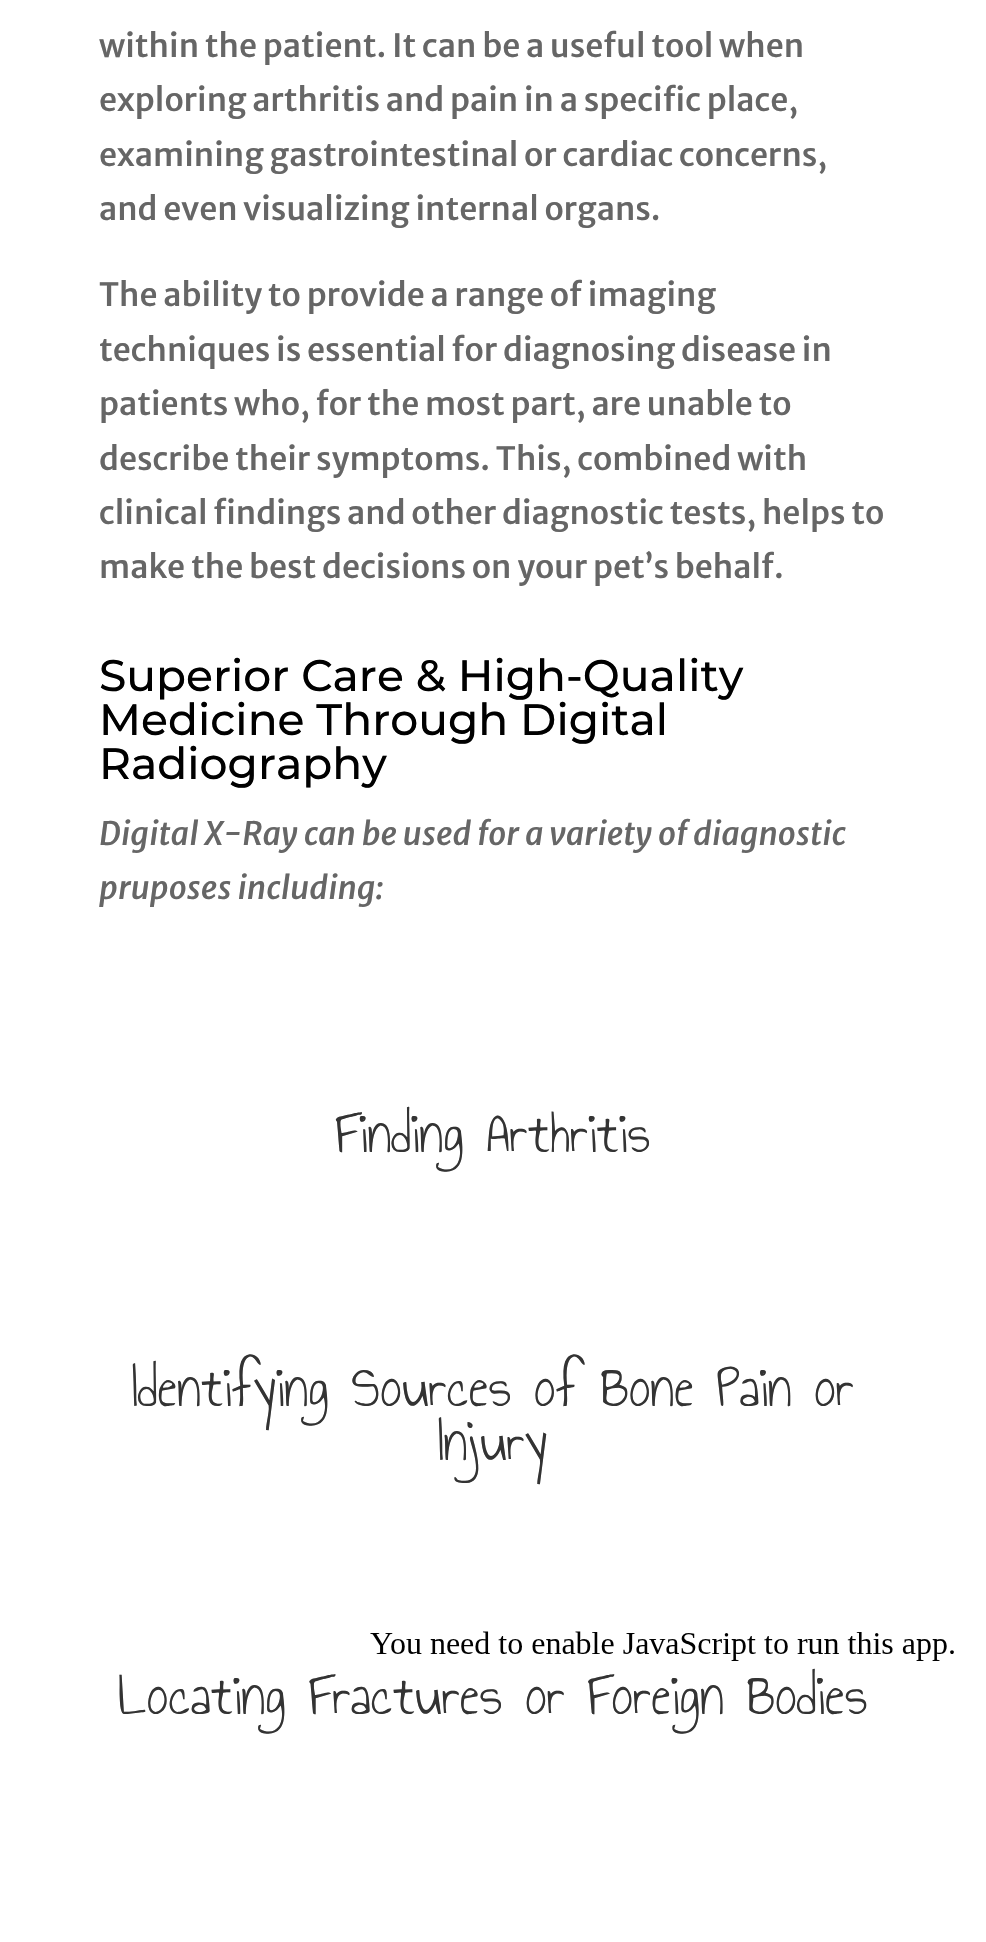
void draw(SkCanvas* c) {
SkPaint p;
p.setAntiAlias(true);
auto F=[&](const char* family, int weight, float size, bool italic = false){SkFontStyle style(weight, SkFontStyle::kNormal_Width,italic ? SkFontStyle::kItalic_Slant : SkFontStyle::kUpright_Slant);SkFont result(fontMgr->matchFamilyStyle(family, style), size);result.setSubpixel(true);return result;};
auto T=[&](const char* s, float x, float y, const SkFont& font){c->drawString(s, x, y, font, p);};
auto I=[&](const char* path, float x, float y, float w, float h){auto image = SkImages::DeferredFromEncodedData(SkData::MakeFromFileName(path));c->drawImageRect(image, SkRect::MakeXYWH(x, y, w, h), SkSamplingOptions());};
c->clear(0xffffffff);
auto f1 = F("Merriweather Sans",500,32);
p.setColor(0xff666666);
T("within the patient. It can be a useful tool when",99,57,f1);
T("exploring arthritis and pain in a specific place,",99,111,f1);
T("examining gastrointestinal or cardiac concerns,",99,166,f1);
T("and even visualizing internal organs.",99,220,f1);
T("The ability to provide a range of imaging",99,306,f1);
T("techniques is essential for diagnosing disease in",99,361,f1);
T("patients who, for the most part, are unable to",99,415,f1);
T("describe their symptoms. This, combined with",99,470,f1);
T("clinical findings and other diagnostic tests, helps to",99,524,f1);
T("make the best decisions on your pet’s behalf.",99,578,f1);
auto f2 = F("Montserrat",100,44);
p.setColor(0xff000000);
T("Superior Care & High-Quality",99,691,f2);
T("Medicine Through Digital",99,735,f2);
T("Radiography",99,779,f2);
auto f3 = F("Merriweather Sans",500,32,true);
p.setColor(0xff666666);
T("Digital X-Ray can be used for a variety of diagnostic",99,845,f3);
T("pruposes including:",99,899,f3);
auto f4 = F("Annie Use Your Telescope",400,60);
p.setColor(0xff333333);
T("Finding Arthritis",335,1152,f4);
T("Identifying Sources of Bone Pain or",132,1406,f4);
T("Injury",438,1460,f4);
T("Locating Fractures or Foreign Bodies",118,1714,f4);
I("1.png",370,1631,584,30);
}
